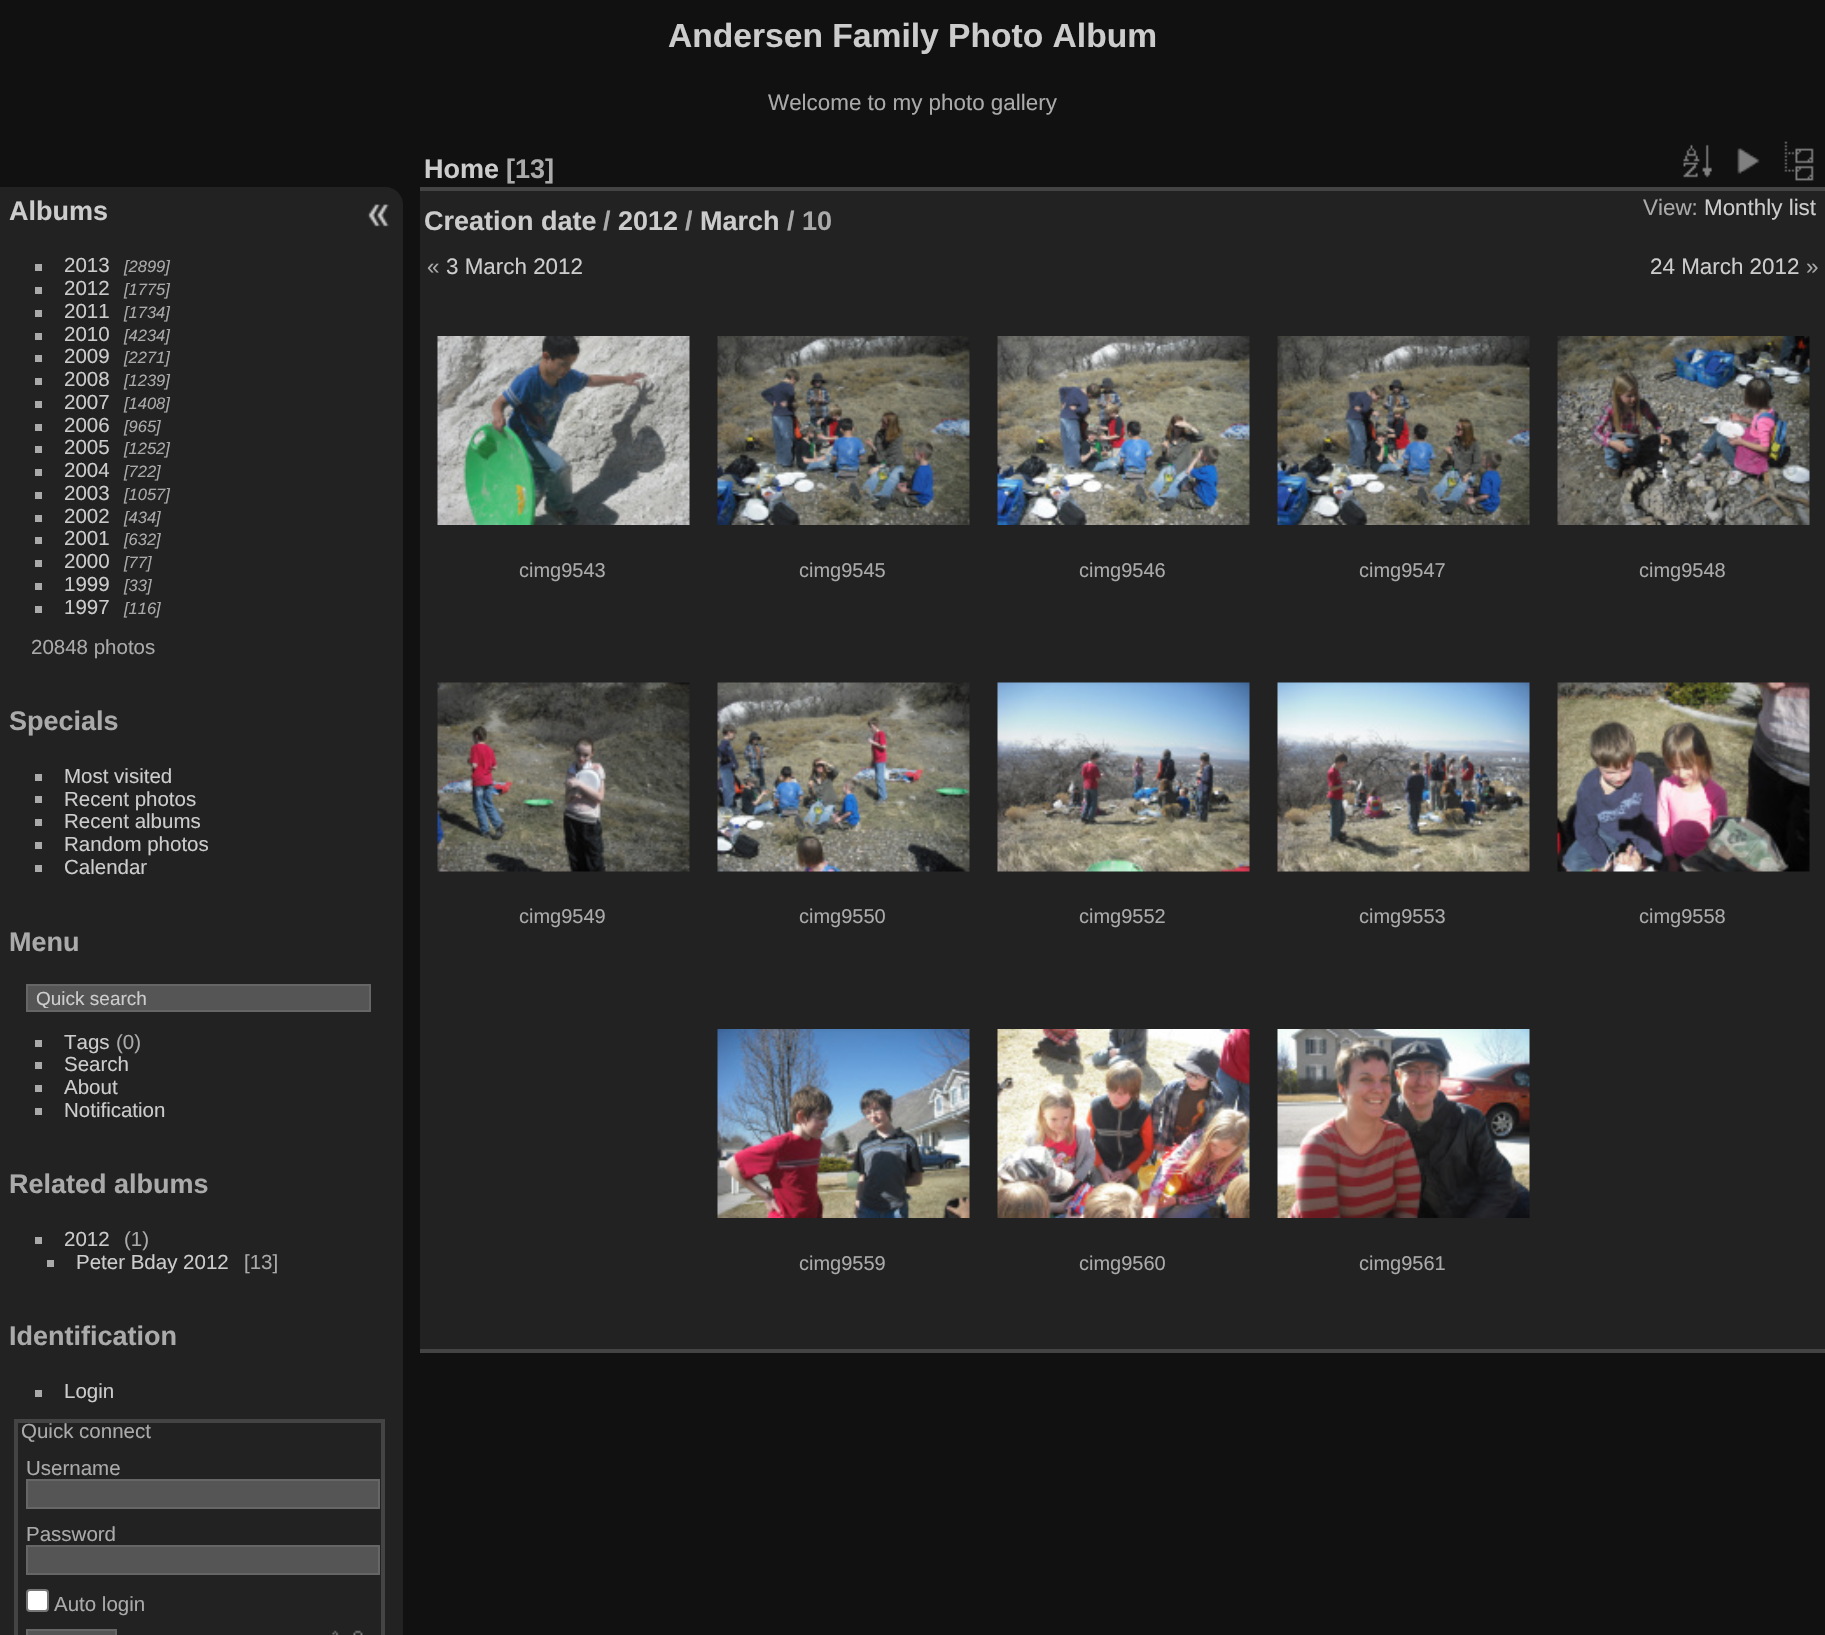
void draw(SkCanvas* c) {
SkPaint p;
p.setAntiAlias(true);
auto F=[&](const char* family, int weight, float size, bool italic = false){SkFontStyle style(weight, SkFontStyle::kNormal_Width,italic ? SkFontStyle::kItalic_Slant : SkFontStyle::kUpright_Slant);SkFont result(fontMgr->matchFamilyStyle(family, style), size);result.setSubpixel(true);return result;};
auto T=[&](const char* s, float x, float y, const SkFont& font){c->drawString(s, x, y, font, p);};
auto R=[&](float x, float y, float w, float h){c->drawRect(SkRect::MakeXYWH(x, y, w, h), p);};
auto I=[&](const char* path, float x, float y, float w, float h){auto image = SkImages::DeferredFromEncodedData(SkData::MakeFromFileName(path));c->drawImageRect(image, SkRect::MakeXYWH(x, y, w, h), SkSamplingOptions());};
auto P=[&](const char* data, bool evenOdd = false){SkPath result = *SkParsePath::FromSVGString(data);if (evenOdd) result.setFillType(SkPathFillType::kEvenOdd);return result;};
c->clear(0xff111111);
auto f1 = F("Liberation Sans",700,33.6);
p.setColor(0xffcccccc);
T("Andersen Family Photo Album",668,47,f1);
auto f2 = F("Liberation Sans",400,22.4);
p.setColor(0xffaaaaaa);
T("Welcome to my photo gallery",768,110,f2);
p.setColor(0xff222222);
c->drawPath(P("M0 187h385c10 0 18 8 18 18v1430c0 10-8 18-18 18h-385z"),p);
auto f3 = F("Liberation Sans",700,27);
p.setColor(0xffcccccc);
T("Albums",9,220,f3);
p.setColor(0xffaaaaaa);
R(35,264,7,7);
auto f4 = F("Liberation Sans",400,20.5);
p.setColor(0xffcccccc);
T("2013",64,272,f4);
auto f5 = F("Liberation Sans",400,16.5,true);
p.setColor(0xffaaaaaa);
T("[2899]",124,272,f5);
R(35,287,7,7);
p.setColor(0xffcccccc);
T("2012",64,295,f4);
p.setColor(0xffaaaaaa);
T("[1775]",124,295,f5);
R(35,310,7,7);
p.setColor(0xffcccccc);
T("2011",64,318,f4);
p.setColor(0xffaaaaaa);
T("[1734]",124,318,f5);
R(35,333,7,7);
p.setColor(0xffcccccc);
T("2010",64,341,f4);
p.setColor(0xffaaaaaa);
T("[4234]",124,341,f5);
R(35,355,7,7);
p.setColor(0xffcccccc);
T("2009",64,363,f4);
p.setColor(0xffaaaaaa);
T("[2271]",124,363,f5);
R(35,378,7,7);
p.setColor(0xffcccccc);
T("2008",64,386,f4);
p.setColor(0xffaaaaaa);
T("[1239]",124,386,f5);
R(35,401,7,7);
p.setColor(0xffcccccc);
T("2007",64,409,f4);
p.setColor(0xffaaaaaa);
T("[1408]",124,409,f5);
R(35,424,7,7);
p.setColor(0xffcccccc);
T("2006",64,432,f4);
p.setColor(0xffaaaaaa);
T("[965]",124,432,f5);
R(35,446,7,7);
p.setColor(0xffcccccc);
T("2005",64,454,f4);
p.setColor(0xffaaaaaa);
T("[1252]",124,454,f5);
R(35,469,7,7);
p.setColor(0xffcccccc);
T("2004",64,477,f4);
p.setColor(0xffaaaaaa);
T("[722]",124,477,f5);
R(35,492,7,7);
p.setColor(0xffcccccc);
T("2003",64,500,f4);
p.setColor(0xffaaaaaa);
T("[1057]",124,500,f5);
R(35,515,7,7);
p.setColor(0xffcccccc);
T("2002",64,523,f4);
p.setColor(0xffaaaaaa);
T("[434]",124,523,f5);
R(35,537,7,7);
p.setColor(0xffcccccc);
T("2001",64,545,f4);
p.setColor(0xffaaaaaa);
T("[632]",124,545,f5);
R(35,560,7,7);
p.setColor(0xffcccccc);
T("2000",64,568,f4);
p.setColor(0xffaaaaaa);
T("[77]",124,568,f5);
R(35,583,7,7);
p.setColor(0xffcccccc);
T("1999",64,591,f4);
p.setColor(0xffaaaaaa);
T("[33]",124,591,f5);
R(35,606,7,7);
p.setColor(0xffcccccc);
T("1997",64,614,f4);
p.setColor(0xffaaaaaa);
T("[116]",124,614,f5);
T("20848 photos",31,654,f4);
T("Specials",9,730,f3);
R(35,774,7,7);
p.setColor(0xffcccccc);
T("Most visited",64,783,f4);
p.setColor(0xffaaaaaa);
R(35,796,7,7);
p.setColor(0xffcccccc);
T("Recent photos",64,806,f4);
p.setColor(0xffaaaaaa);
R(35,819,7,7);
p.setColor(0xffcccccc);
T("Recent albums",64,828,f4);
p.setColor(0xffaaaaaa);
R(35,842,7,7);
p.setColor(0xffcccccc);
T("Random photos",64,851,f4);
p.setColor(0xffaaaaaa);
R(35,865,7,7);
p.setColor(0xffcccccc);
T("Calendar",64,874,f4);
p.setColor(0xffaaaaaa);
T("Menu",9,951,f3);
p.setColor(0xff555555);
c->drawRect(SkRect::MakeXYWH(27,985,343,26),p);
p.setStroke(true);
p.setStrokeWidth(2);
p.setColor(0xff666666);
c->drawRect(SkRect::MakeXYWH(27,985,343,26),p);
c->save();
c->clipRect(SkRect::MakeXYWH(32,987,334,21));
auto f6 = F("Liberation Sans",400,19);
p.setStroke(false);
p.setColor(0xffcccccc);
T("Quick search",36,1005,f6);
c->restore();
p.setColor(0xffaaaaaa);
R(35,1040,7,7);
p.setColor(0xffcccccc);
T("Tags",64,1049,f4);
p.setColor(0xffaaaaaa);
T("(0)",116,1049,f4);
R(35,1062,7,7);
p.setColor(0xffcccccc);
T("Search",64,1071,f4);
p.setColor(0xffaaaaaa);
R(35,1085,7,7);
p.setColor(0xffcccccc);
T("About",64,1094,f4);
p.setColor(0xffaaaaaa);
R(35,1108,7,7);
p.setColor(0xffcccccc);
T("Notification",64,1117,f4);
p.setColor(0xffaaaaaa);
T("Related albums",9,1193,f3);
R(35,1237,7,7);
p.setColor(0xffcccccc);
T("2012",64,1246,f4);
p.setColor(0xffaaaaaa);
T("(1)",124,1246,f4);
R(47,1260,7,7);
p.setColor(0xffcccccc);
T("Peter Bday 2012",76,1269,f4);
p.setColor(0xffaaaaaa);
T("[13]",244,1269,f4);
T("Identification",9,1345,f3);
R(35,1390,7,7);
p.setColor(0xffcccccc);
T("Login",64,1398,f4);
p.setStroke(true);
p.setStrokeWidth(4);
p.setColor(0xff444444);
c->drawRect(SkRect::MakeXYWH(16,1421,367,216),p);
p.setStroke(false);
p.setColor(0xffaaaaaa);
T("Quick connect",21,1438,f4);
T("Username",26,1475,f4);
p.setColor(0xff555555);
c->drawRect(SkRect::MakeXYWH(27,1480,352,28),p);
p.setStroke(true);
p.setStrokeWidth(2);
p.setColor(0xff666666);
c->drawRect(SkRect::MakeXYWH(27,1480,352,28),p);
p.setStroke(false);
p.setColor(0xffaaaaaa);
T("Password",26,1541,f4);
p.setColor(0xff555555);
c->drawRect(SkRect::MakeXYWH(27,1546,352,28),p);
p.setStroke(true);
p.setColor(0xff666666);
c->drawRect(SkRect::MakeXYWH(27,1546,352,28),p);
p.setStroke(false);
p.setColor(0xffffffff);
c->drawRoundRect(SkRect::MakeXYWH(27,1590,21,21),3,3,p);
p.setStroke(true);
p.setColor(0xff767676);
c->drawRoundRect(SkRect::MakeXYWH(27,1590,21,21),3,3,p);
p.setStroke(false);
p.setColor(0xffaaaaaa);
T("Auto login",54,1611,f4);
p.setColor(0xff555555);
c->drawRect(SkRect::MakeXYWH(27,1630,89,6),p);
p.setStroke(true);
p.setColor(0xff666666);
c->drawRect(SkRect::MakeXYWH(27,1630,89,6),p);
I("1.png",332,1630,31,5);
I("2.png",367,204,22,23);
p.setStroke(false);
p.setColor(0xff222222);
R(420,191,1405,1158);
p.setColor(0xff444444);
R(420,1349,1405,4);
p.setColor(0xffcccccc);
T("Home",424,178,f3);
p.setColor(0xffaaaaaa);
T("[13]",506,178,f3);
I("3.png",1683,144,29,34);
I("4.png",1737,148,23,26);
I("5.png",1784,141,30,40);
p.setColor(0xff444444);
R(420,187,1405,4);
p.setColor(0xffcccccc);
T("Creation date",424,230,f3);
p.setColor(0xffaaaaaa);
T("/",603,230,f3);
p.setColor(0xffcccccc);
T("2012",618,230,f3);
p.setColor(0xffaaaaaa);
T("/",685,230,f3);
p.setColor(0xffcccccc);
T("March",700,230,f3);
p.setColor(0xffaaaaaa);
T("/ 10",787,230,f3);
T("View:",1643,215,f2);
p.setColor(0xffcccccc);
T("Monthly list",1704,215,f2);
p.setColor(0xffaaaaaa);
T("«",427,274,f2);
p.setColor(0xffcccccc);
T("3 March 2012",446,274,f2);
T("24 March 2012",1650,274,f2);
p.setColor(0xffaaaaaa);
T("»",1806,274,f2);
I("6.png",437,336,253,189);
auto f7 = F("Liberation Sans",400,20);
T("cimg9543",519,577,f7);
I("7.png",717,336,253,189);
T("cimg9545",799,577,f7);
I("8.png",997,336,253,189);
T("cimg9546",1079,577,f7);
I("9.png",1277,336,253,189);
T("cimg9547",1359,577,f7);
I("10.png",1557,336,253,189);
T("cimg9548",1639,577,f7);
I("11.png",437,682,253,190);
T("cimg9549",519,923,f7);
I("12.png",717,682,253,190);
T("cimg9550",799,923,f7);
I("13.png",997,682,253,190);
T("cimg9552",1079,923,f7);
I("14.png",1277,682,253,190);
T("cimg9553",1359,923,f7);
I("15.png",1557,682,253,190);
T("cimg9558",1639,923,f7);
I("16.png",717,1029,253,189);
T("cimg9559",799,1270,f7);
I("17.png",997,1029,253,189);
T("cimg9560",1079,1270,f7);
I("18.png",1277,1029,253,189);
T("cimg9561",1359,1270,f7);
}
